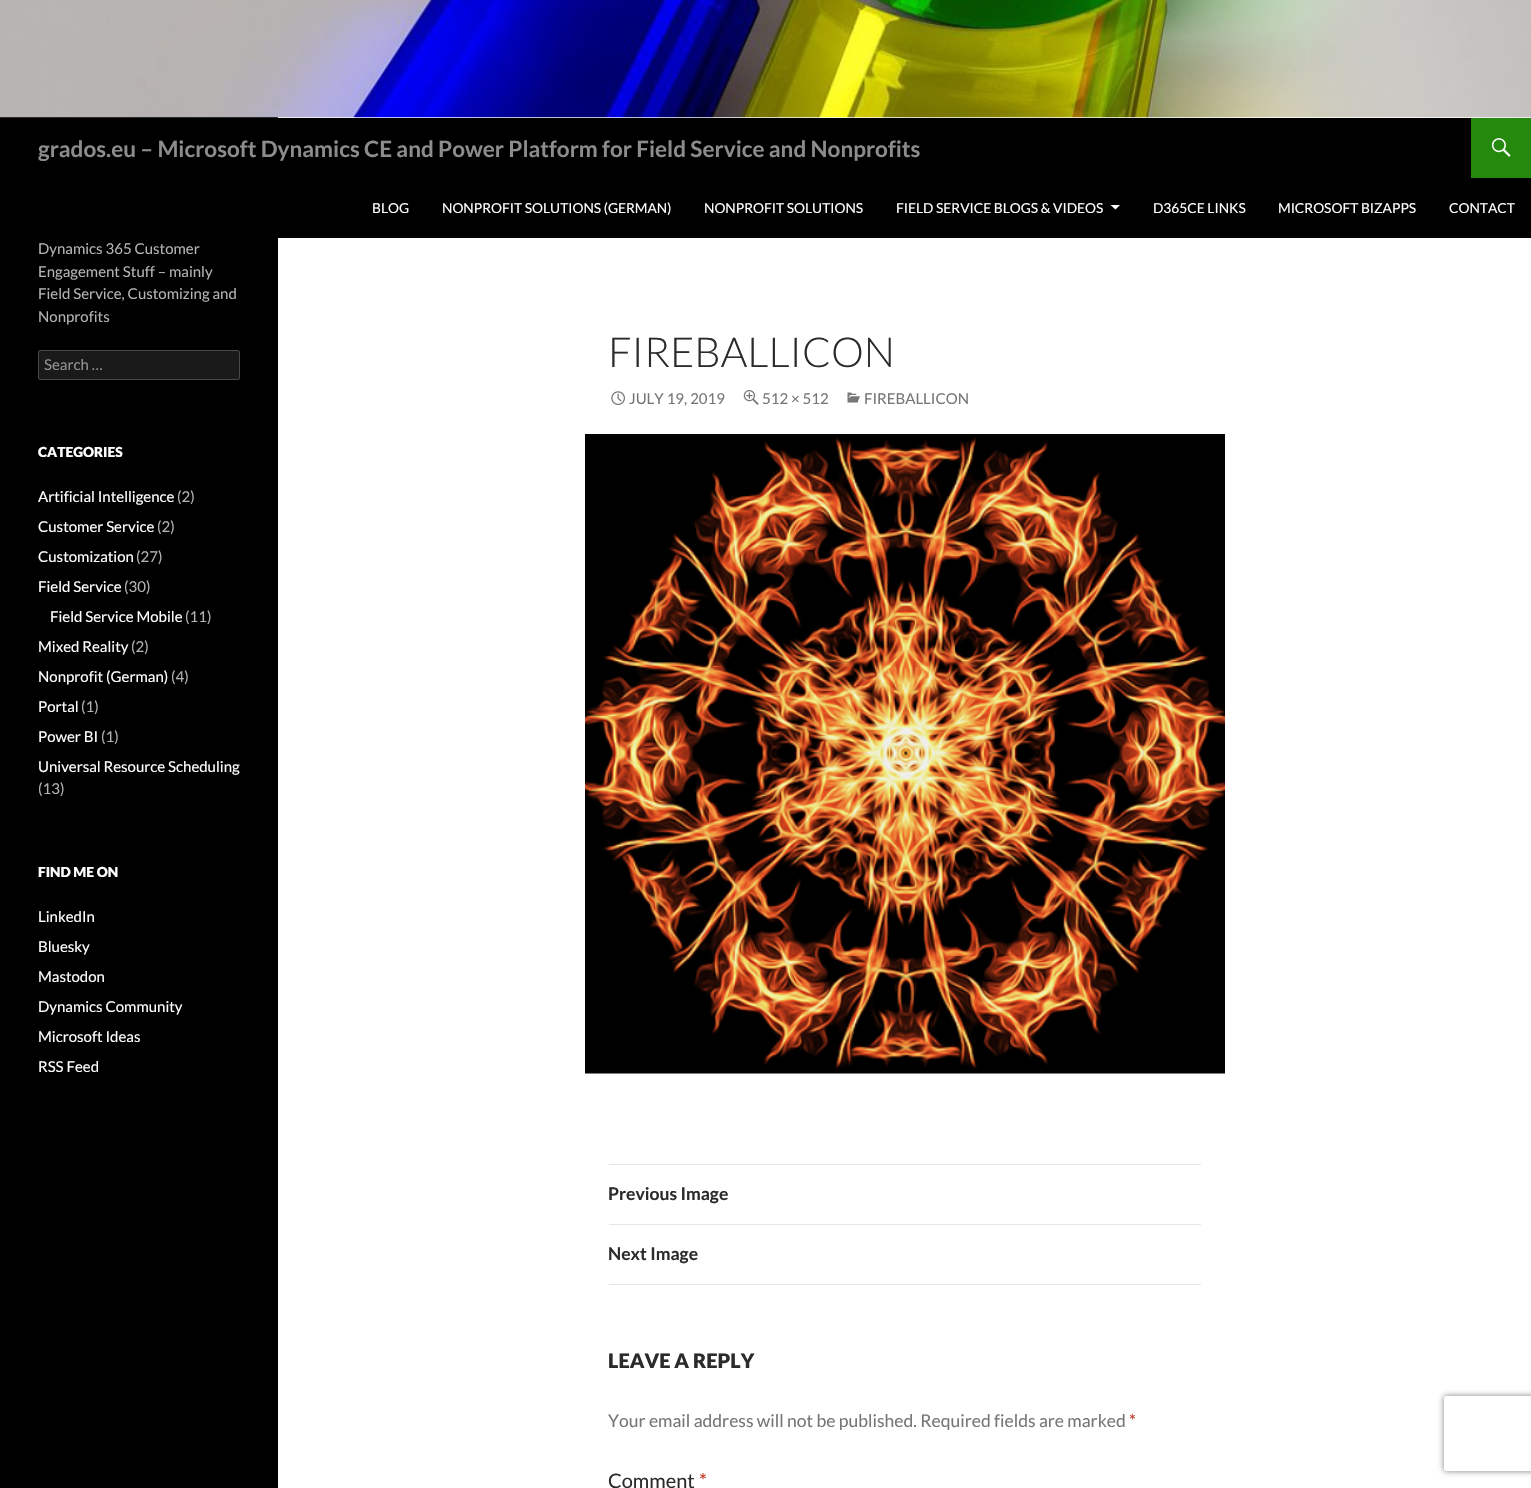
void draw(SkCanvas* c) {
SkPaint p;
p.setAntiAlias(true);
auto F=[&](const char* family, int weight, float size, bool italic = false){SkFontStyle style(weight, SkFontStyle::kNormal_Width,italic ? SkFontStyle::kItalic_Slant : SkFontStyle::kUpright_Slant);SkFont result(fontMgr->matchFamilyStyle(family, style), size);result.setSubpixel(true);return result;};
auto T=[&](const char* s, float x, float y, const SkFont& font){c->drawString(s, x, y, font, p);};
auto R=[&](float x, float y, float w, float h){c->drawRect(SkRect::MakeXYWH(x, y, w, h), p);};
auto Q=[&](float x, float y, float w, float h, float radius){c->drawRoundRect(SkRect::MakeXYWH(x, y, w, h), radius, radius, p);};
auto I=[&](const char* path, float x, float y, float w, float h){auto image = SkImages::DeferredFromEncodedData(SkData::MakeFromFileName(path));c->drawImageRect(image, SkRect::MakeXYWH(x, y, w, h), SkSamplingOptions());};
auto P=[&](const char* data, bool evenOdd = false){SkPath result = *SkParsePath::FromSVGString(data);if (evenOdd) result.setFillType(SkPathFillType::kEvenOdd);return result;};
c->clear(0xffffffff);
p.setColor(0xff000000);
R(0,117,278,1371);
I("1.png",0,0,1531,118);
R(278,118,1253,120);
auto f1 = F("Lato",700,22.5);
p.setColor(0xff8c8c8c);
T("grados.eu – Microsoft Dynamics CE and Power Platform for Field Service and Nonprofits",38,157,f1);
p.setColor(0xff24890d);
R(1471,118,60,60);
I("2.png",1491,138,20,19);
auto f2 = F("Lato",400,13.75);
p.setColor(0xffffffff);
T("BLOG",372,213,f2);
T("NONPROFIT SOLUTIONS (GERMAN)",442,213,f2);
T("NONPROFIT SOLUTIONS",704,213,f2);
T("FIELD SERVICE BLOGS & VIDEOS",896,213,f2);
c->drawPath(P("M1110.5 205l5 4.5l4.5-4.5z"),p);
T("D365CE LINKS",1153,213,f2);
T("MICROSOFT BIZAPPS",1278,213,f2);
T("CONTACT",1449,213,f2);
auto f3 = F("Lato",400,15);
p.setColor(0xffb3b3b3);
T("Dynamics 365 Customer",38,254,f3);
T("Engagement Stuff – mainly",38,277,f3);
T("Field Service, Customizing and",38,299,f3);
T("Nonprofits",38,322,f3);
p.setColor(0xff1a1a1a);
Q(38,350,202,30,2.5);
p.setStroke(true);
p.setStrokeWidth(1);
p.setColor(0x33ffffff);
c->drawRoundRect(SkRect::MakeXYWH(38.5,350.5,201,29),2,2,p);
p.setStroke(false);
p.setColor(0xff939393);
T("Search …",44,370,f3);
auto f4 = F("Lato",900,13.75);
p.setColor(0xffffffff);
T("CATEGORIES",38,457,f4);
T("Artificial Intelligence",38,502,f3);
p.setColor(0xffb3b3b3);
T("(2)",177,502,f3);
p.setColor(0xffffffff);
T("Customer Service",38,532,f3);
p.setColor(0xffb3b3b3);
T("(2)",157,532,f3);
p.setColor(0xffffffff);
T("Customization",38,562,f3);
p.setColor(0xffb3b3b3);
T("(27)",136,562,f3);
p.setColor(0xffffffff);
T("Field Service",38,592,f3);
p.setColor(0xffb3b3b3);
T("(30)",124,592,f3);
p.setColor(0xffffffff);
T("Field Service Mobile",50,622,f3);
p.setColor(0xffb3b3b3);
T("(11)",185,622,f3);
p.setColor(0xffffffff);
T("Mixed Reality",38,652,f3);
p.setColor(0xffb3b3b3);
T("(2)",131,652,f3);
p.setColor(0xffffffff);
T("Nonprofit (German)",38,682,f3);
p.setColor(0xffb3b3b3);
T("(4)",171,682,f3);
p.setColor(0xffffffff);
T("Portal",38,712,f3);
p.setColor(0xffb3b3b3);
T("(1)",81,712,f3);
p.setColor(0xffffffff);
T("Power BI",38,742,f3);
p.setColor(0xffb3b3b3);
T("(1)",101,742,f3);
p.setColor(0xffffffff);
T("Universal Resource Scheduling",38,772,f3);
p.setColor(0xffb3b3b3);
T("(13)",38,794,f3);
p.setColor(0xffffffff);
T("FIND ME ON",38,877,f4);
T("LinkedIn",38,922,f3);
T("Bluesky",38,952,f3);
T("Mastodon",38,982,f3);
T("Dynamics Community",38,1012,f3);
T("Microsoft Ideas",38,1042,f3);
T("RSS Feed",38,1072,f3);
auto f5 = F("Lato",300,41.25);
p.setColor(0xff2b2b2b);
T("FIREBALLICON",608,367,f5);
I("3.png",611,391,14,14);
p.setColor(0xff767676);
T("JULY 19, 2019",629,404,f3);
I("4.png",743,390,16,15);
T("512 × 512",762,404,f3);
I("5.png",847,392,13,11);
T("FIREBALLICON",864,404,f3);
I("6.png",585,434,640,640);
p.setColor(0xffe6e6e6);
R(609,1164,592,1);
R(609,1224,592,1);
auto f6 = F("Lato",700,17.5);
p.setColor(0xff2b2b2b);
T("Previous Image",608,1200,f6);
p.setColor(0xffe6e6e6);
R(609,1284,592,1);
p.setColor(0xff2b2b2b);
T("Next Image",608,1260,f6);
auto f7 = F("Lato",900,20);
T("LEAVE A REPLY",608,1368,f7);
auto f8 = F("Lato",400,17.5);
p.setColor(0xff767676);
T("Your email address will not be published. Required fields are marked",608,1427,f8);
p.setColor(0xffc0392b);
T("*",1129,1427,f8);
auto f9 = F("Lato",400,20);
p.setColor(0xff2b2b2b);
T("Comment",608,1488,f9);
p.setColor(0xffc0392b);
T("*",699,1488,f9);
c->save();
c->clipPath(P("M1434 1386h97v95h-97zm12.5 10h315c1.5 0 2.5 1 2.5 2.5v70c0 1.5-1 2.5-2.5 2.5h-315c-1.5 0-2.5-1-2.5-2.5v-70c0-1.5 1-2.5 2.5-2.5z",true),true);
p.setColor(0xff808080);
p.setMaskFilter(SkMaskFilter::MakeBlur(kNormal_SkBlurStyle, 3));
c->drawRoundRect(SkRect::MakeXYWH(1444,1396,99,75),2.5,2.5,p);
p.setMaskFilter(nullptr);
c->restore();
}
